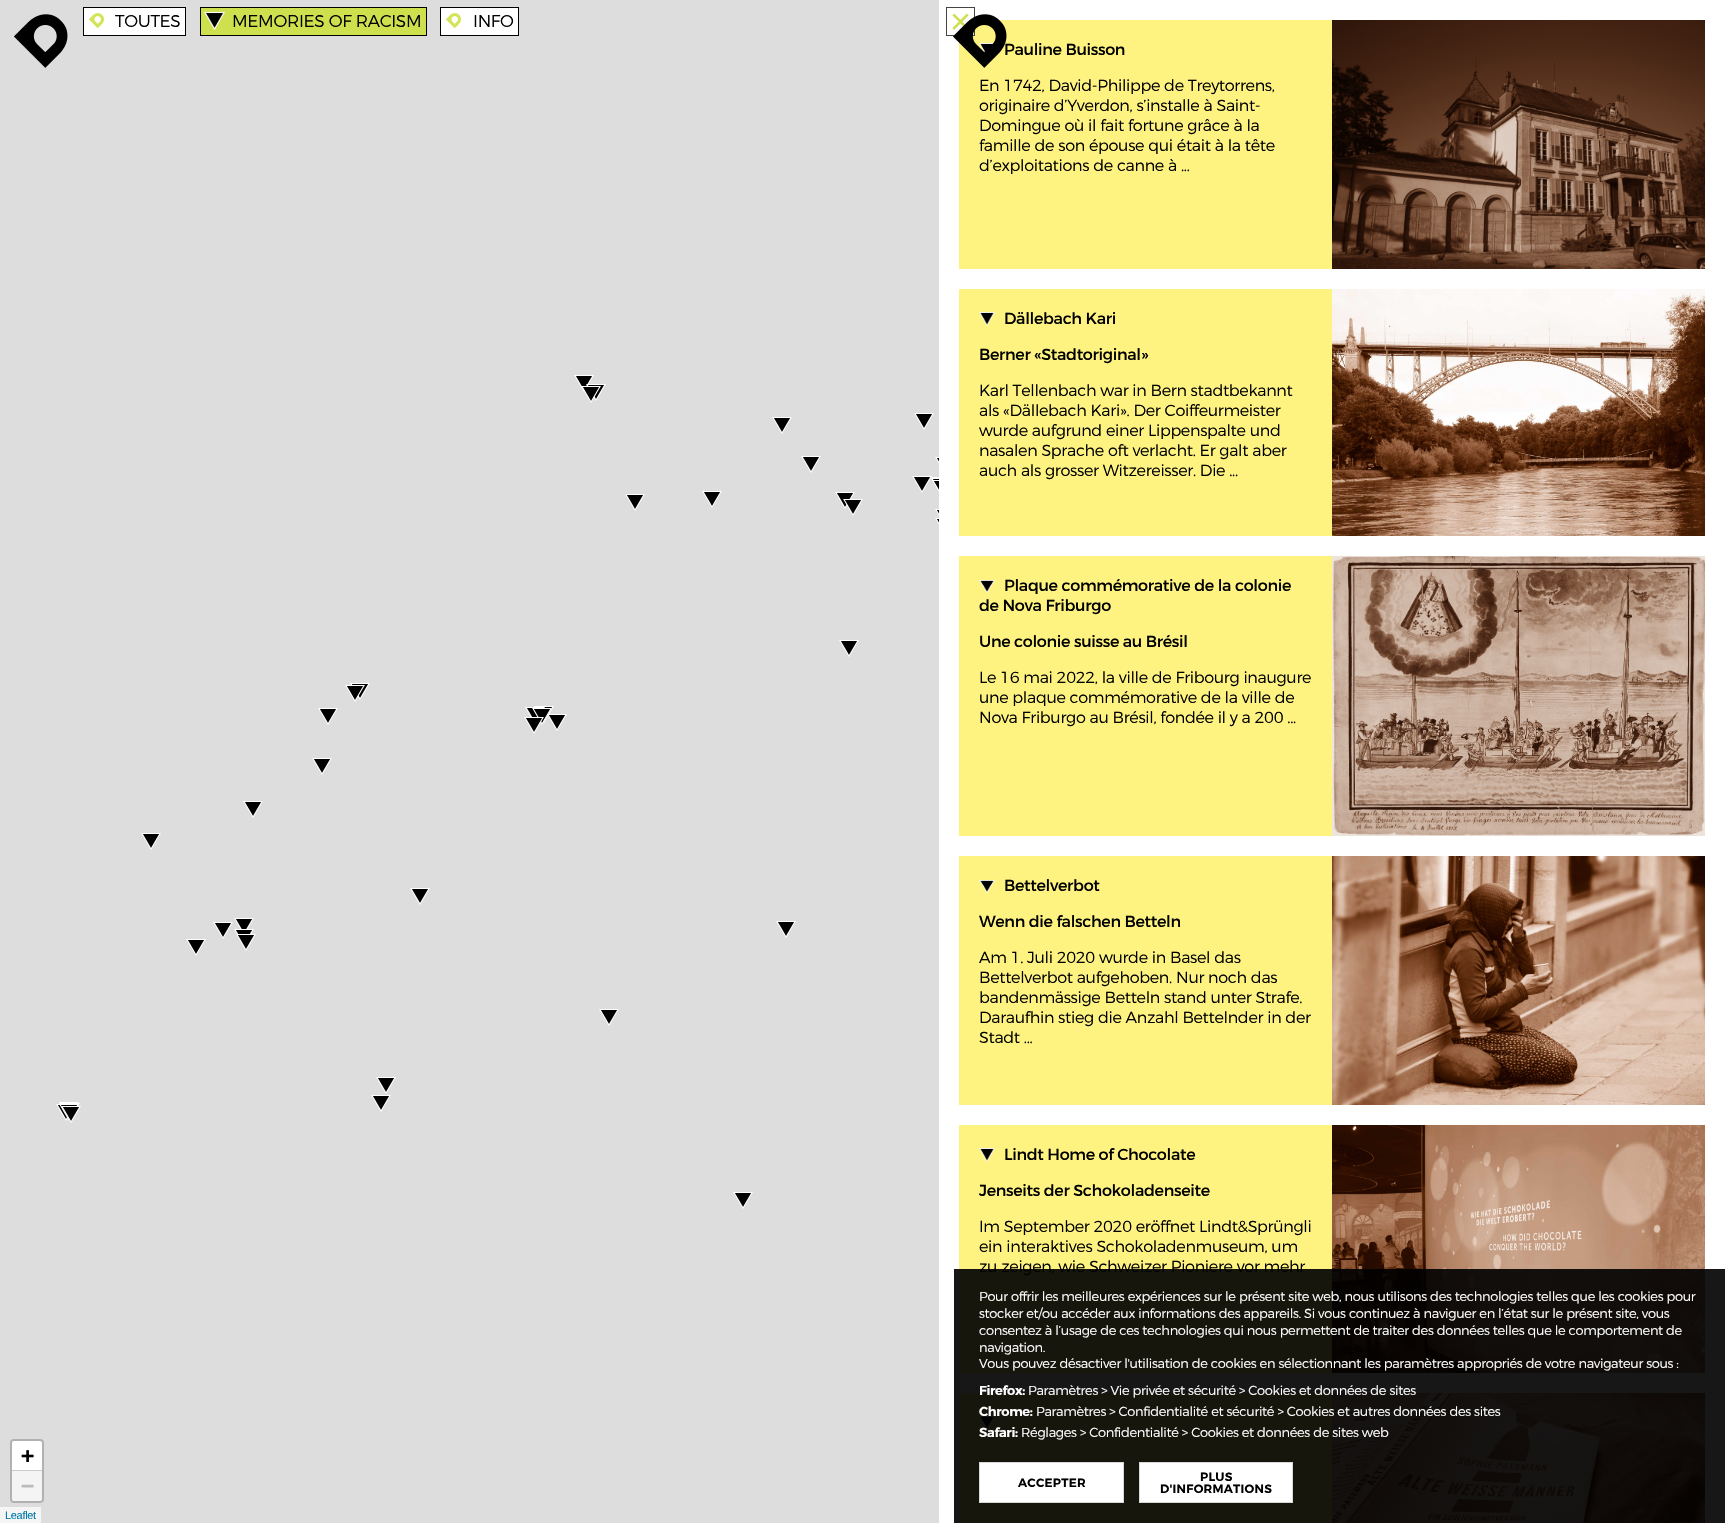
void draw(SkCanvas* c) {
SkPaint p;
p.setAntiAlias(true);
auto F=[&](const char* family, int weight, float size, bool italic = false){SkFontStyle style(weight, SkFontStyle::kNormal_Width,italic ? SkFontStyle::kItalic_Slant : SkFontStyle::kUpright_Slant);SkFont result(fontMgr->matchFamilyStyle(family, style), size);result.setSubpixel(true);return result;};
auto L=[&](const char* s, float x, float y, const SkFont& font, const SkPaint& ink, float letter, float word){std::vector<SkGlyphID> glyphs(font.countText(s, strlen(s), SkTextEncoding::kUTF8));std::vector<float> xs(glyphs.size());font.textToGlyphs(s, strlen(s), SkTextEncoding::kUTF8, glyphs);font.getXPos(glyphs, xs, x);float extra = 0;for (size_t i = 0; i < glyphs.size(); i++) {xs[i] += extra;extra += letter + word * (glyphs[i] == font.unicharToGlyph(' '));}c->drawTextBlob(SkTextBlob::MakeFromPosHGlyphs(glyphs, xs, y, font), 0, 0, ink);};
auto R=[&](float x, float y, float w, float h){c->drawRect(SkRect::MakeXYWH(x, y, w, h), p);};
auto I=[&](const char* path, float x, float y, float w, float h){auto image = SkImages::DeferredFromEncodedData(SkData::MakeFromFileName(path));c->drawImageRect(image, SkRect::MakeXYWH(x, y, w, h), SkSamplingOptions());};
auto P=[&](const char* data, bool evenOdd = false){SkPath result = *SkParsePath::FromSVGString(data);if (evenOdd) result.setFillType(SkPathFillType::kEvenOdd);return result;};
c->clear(0xffdddddd);
I("1.png",14,14,54,54);
p.setColor(0xffffffff);
c->drawRect(SkRect::MakeXYWH(83.5,7.5,102,28),p);
p.setStroke(true);
p.setStrokeWidth(1);
p.setColor(0xff000000);
c->drawRect(SkRect::MakeXYWH(83.5,7.5,102,28),p);
I("2.png",88,13,16,16);
auto f1 = F("Montserrat",300,17);
p.setStroke(false);
L("TOUTES",115,27,f1,p,-.32,0);
p.setStroke(true);
c->drawRect(SkRect::MakeXYWH(200.5,7.5,226,28),p);
p.setStroke(false);
p.setColor(0xffcee04e);
R(201,8,225,27);
I("3.png",203,11,22,19);
p.setColor(0xff000000);
L("MEMORIES OF RACISM",232,27,f1,p,-.32,0);
p.setColor(0xffffffff);
c->drawRect(SkRect::MakeXYWH(440.5,7.5,78,28),p);
p.setStroke(true);
p.setColor(0xff000000);
c->drawRect(SkRect::MakeXYWH(440.5,7.5,78,28),p);
I("2.png",445,13,16,16);
p.setStroke(false);
L("INFO",473,27,f1,p,-.32,0);
p.setColor(0xffffffff);
R(939,0,786,1523);
p.setColor(0xfffef380);
R(959,20,373,249);
p.setColor(0xffffffff);
R(959,20,15,15);
p.setStroke(true);
p.setColor(0xff444444);
c->drawRect(SkRect::MakeXYWH(946.5,7.5,28,28),p);
I("5.png",952,13,17,17);
I("6.png",979,43,15,10);
auto f2 = F("Montserrat",400,16);
p.setStroke(false);
p.setColor(0xff000000);
L("Pauline Buisson",1004,55,f2,p,-.32,0);
I("4.png",953,14,54,54);
auto f3 = F("Montserrat",300,16);
L("En 1742, David-Philippe de Treytorrens,",979,91,f3,p,-.32,0);
L("originaire d’Yverdon, s’installe à Saint-",979,111,f3,p,-.32,0);
L("Domingue où il fait fortune grâce à la",979,131,f3,p,-.32,0);
L("famille de son épouse qui était à la tête",979,151,f3,p,-.32,0);
L("d’exploitations de canne à ...",979,171,f3,p,-.32,0);
I("7.png",1332,20,373,249);
p.setColor(0xfffef380);
R(959,289,373,247);
I("8.png",979,312,16,14);
p.setColor(0xff000000);
L("Dällebach Kari",1004,324,f2,p,-.32,0);
L("Berner «Stadtoriginal»",979,360,f2,p,-.32,0);
L("Karl Tellenbach war in Bern stadtbekannt",979,396,f3,p,-.32,0);
L("als «Dällebach Kari». Der Coiffeurmeister",979,416,f3,p,-.32,0);
L("wurde aufgrund einer Lippenspalte und",979,436,f3,p,-.32,0);
L("nasalen Sprache oft verlacht. Er galt aber",979,456,f3,p,-.32,0);
L("auch als grosser Witzereisser. Die ...",979,476,f3,p,-.32,0);
I("9.png",1332,289,373,247);
p.setColor(0xfffef380);
R(959,556,373,280);
I("10.png",979,580,16,13);
p.setColor(0xff000000);
L("Plaque commémorative de la colonie",1004,591,f2,p,-.32,0);
L("de Nova Friburgo",979,611,f2,p,-.32,0);
L("Une colonie suisse au Brésil",979,647,f2,p,-.32,0);
L("Le 16 mai 2022, la ville de Fribourg inaugure",979,683,f3,p,-.32,0);
L("une plaque commémorative de la ville de",979,703,f3,p,-.32,0);
L("Nova Friburgo au Brésil, fondée il y a 200 ...",979,723,f3,p,-.32,0);
I("11.png",1332,556,373,280);
p.setColor(0xfffef380);
R(959,856,373,249);
I("10.png",979,880,16,13);
p.setColor(0xff000000);
L("Bettelverbot",1004,891,f2,p,-.32,0);
L("Wenn die falschen Betteln",979,927,f2,p,-.32,0);
L("Am 1. Juli 2020 wurde in Basel das",979,963,f3,p,-.32,0);
L("Bettelverbot aufgehoben. Nur noch das",979,983,f3,p,-.32,0);
L("bandenmässige Betteln stand unter Strafe.",979,1003,f3,p,-.32,0);
L("Daraufhin stieg die Anzahl Bettelnder in der",979,1023,f3,p,-.32,0);
L("Stadt ...",979,1043,f3,p,-.32,0);
I("12.png",1332,856,373,249);
p.setColor(0xfffef380);
R(959,1125,373,248);
I("8.png",979,1148,16,14);
p.setColor(0xff000000);
L("Lindt Home of Chocolate",1004,1160,f2,p,-.32,0);
L("Jenseits der Schokoladenseite",979,1196,f2,p,-.32,0);
L("Im September 2020 eröffnet Lindt&Sprüngli",979,1232,f3,p,-.32,0);
L("ein interaktives Schokoladenmuseum, um",979,1252,f3,p,-.32,0);
L("zu zeigen, wie Schweizer Pioniere vor mehr",979,1272,f3,p,-.32,0);
I("13.png",1332,1125,373,248);
p.setColor(0xfffef380);
R(959,1393,373,130);
I("8.png",979,1416,16,14);
I("14.png",1332,1393,373,130);
p.setColor(0xb3000000);
R(954,1269,771,254);
I("15.png",574,375,20,17);
I("16.png",586,384,20,17);
I("17.png",581,386,20,17);
I("15.png",772,417,20,17);
I("15.png",914,413,20,17);
I("15.png",801,456,20,17);
I("18.png",935,457,4,7);
I("15.png",912,476,20,17);
I("19.png",931,477,8,14);
I("20.png",931,478,8,14);
I("21.png",932,480,7,12);
I("15.png",625,494,20,17);
I("15.png",702,491,20,17);
I("15.png",835,492,20,17);
I("22.png",843,499,20,17);
I("18.png",935,509,4,7);
I("18.png",935,518,4,7);
I("15.png",839,640,20,17);
I("15.png",350,683,20,17);
I("23.png",345,685,20,17);
I("15.png",534,706,20,17);
I("15.png",318,708,20,17);
I("24.png",525,707,20,10);
I("25.png",532,708,20,17);
I("26.png",547,714,20,17);
I("27.png",524,717,20,17);
I("15.png",312,758,20,17);
I("15.png",243,801,20,17);
I("15.png",141,833,20,17);
I("15.png",410,888,20,17);
I("15.png",213,922,20,17);
I("28.png",234,918,20,11);
I("15.png",776,921,20,17);
I("29.png",234,929,20,16);
I("15.png",186,939,20,17);
I("30.png",236,934,20,17);
I("15.png",599,1009,20,17);
I("15.png",376,1077,20,17);
I("29.png",59,1102,20,16);
I("15.png",371,1095,20,17);
I("31.png",59,1103,20,17);
I("32.png",61,1103,19,17);
I("33.png",56,1104,12,17);
I("34.png",59,1104,19,17);
I("35.png",61,1106,20,17);
I("15.png",733,1192,20,17);
p.setStroke(true);
p.setStrokeWidth(2);
p.setColor(0xffb1b1b1);
c->drawRoundRect(SkRect::MakeXYWH(11,1440,32,62),3,3,p);
p.setStroke(false);
p.setColor(0xffffffff);
c->drawPath(P("M14 1441h26c1 0 2 1 2 2v28h-30v-28c0-1 1-2 2-2z"),p);
p.setColor(0xffcccccc);
R(12,1470,30,1);
auto f4 = F("DejaVu Sans Mono",700,22);
p.setColor(0xff000000);
L("+",21,1463,f4,p,-.32,0);
p.setColor(0xfff4f4f4);
c->drawPath(P("M12 1471h30v28c0 1-1 2-2 2h-26c-1 0-2-1-2-2z"),p);
p.setColor(0xffbbbbbb);
L("−",21,1493,f4,p,-.32,0);
p.setColor(0xfff5f5f5);
R(0,1507,41,16);
auto f5 = F("Liberation Sans",400,11);
p.setColor(0xff0078a8);
L("Leaflet",5,1519,f5,p,-.32,0);
p.setColor(0xb3000000);
R(954,1269,771,254);
auto f6 = F("Montserrat",300,13);
p.setColor(0xffffffff);
L("Pour offrir les meilleures expériences sur le présent site web, nous utilisons des technologies telles que les cookies pour",979,1301,f6,p,-.32,0);
L("stocker et/ou accéder aux informations des appareils. Si vous continuez à naviguer en l’état sur le présent site, vous",979,1318,f6,p,-.32,0);
L("consentez à l’usage de ces technologies qui nous permettent de traiter des données telles que le comportement de",979,1335,f6,p,-.32,0);
L("navigation.",979,1352,f6,p,-.32,0);
L("Vous pouvez désactiver l'utilisation de cookies en sélectionnant les paramètres appropriés de votre navigateur sous :",979,1368,f6,p,-.32,0);
auto f7 = F("Montserrat",600,13);
L("Firefox:",979,1395,f7,p,-.32,0);
L("Paramètres > Vie privée et sécurité > Cookies et données de sites",1028,1395,f6,p,-.32,0);
L("Chrome:",979,1416,f7,p,-.32,0);
L("Paramètres > Confidentialité et sécurité > Cookies et autres données des sites",1036,1416,f6,p,-.32,0);
L("Safari:",979,1437,f7,p,-.32,0);
L("Réglages > Confidentialité > Cookies et données de sites web",1021,1437,f6,p,-.32,0);
c->drawRect(SkRect::MakeXYWH(979.5,1462.5,144,40),p);
p.setStroke(true);
p.setStrokeWidth(1);
p.setColor(0xffd8d8d8);
c->drawRect(SkRect::MakeXYWH(979.5,1462.5,144,40),p);
auto f8 = F("Montserrat",600,12);
p.setStroke(false);
p.setColor(0xff000000);
L("ACCEPTER",1018,1487,f8,p,.25,0);
p.setColor(0xffffffff);
c->drawRect(SkRect::MakeXYWH(1139.5,1462.5,153,40),p);
p.setStroke(true);
p.setColor(0xffd8d8d8);
c->drawRect(SkRect::MakeXYWH(1139.5,1462.5,153,40),p);
p.setStroke(false);
p.setColor(0xff000000);
L("PLUS",1200,1481,f8,p,.25,0);
L("D'INFORMATIONS",1160,1493,f8,p,.25,0);
}
